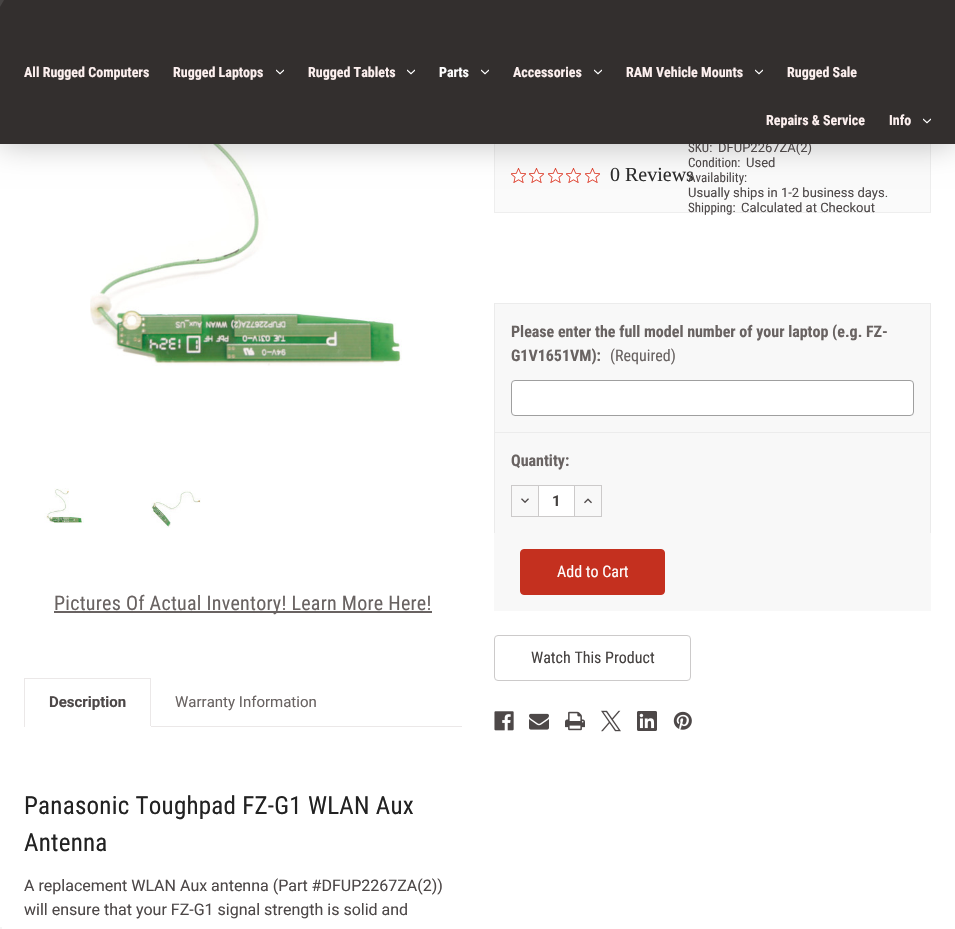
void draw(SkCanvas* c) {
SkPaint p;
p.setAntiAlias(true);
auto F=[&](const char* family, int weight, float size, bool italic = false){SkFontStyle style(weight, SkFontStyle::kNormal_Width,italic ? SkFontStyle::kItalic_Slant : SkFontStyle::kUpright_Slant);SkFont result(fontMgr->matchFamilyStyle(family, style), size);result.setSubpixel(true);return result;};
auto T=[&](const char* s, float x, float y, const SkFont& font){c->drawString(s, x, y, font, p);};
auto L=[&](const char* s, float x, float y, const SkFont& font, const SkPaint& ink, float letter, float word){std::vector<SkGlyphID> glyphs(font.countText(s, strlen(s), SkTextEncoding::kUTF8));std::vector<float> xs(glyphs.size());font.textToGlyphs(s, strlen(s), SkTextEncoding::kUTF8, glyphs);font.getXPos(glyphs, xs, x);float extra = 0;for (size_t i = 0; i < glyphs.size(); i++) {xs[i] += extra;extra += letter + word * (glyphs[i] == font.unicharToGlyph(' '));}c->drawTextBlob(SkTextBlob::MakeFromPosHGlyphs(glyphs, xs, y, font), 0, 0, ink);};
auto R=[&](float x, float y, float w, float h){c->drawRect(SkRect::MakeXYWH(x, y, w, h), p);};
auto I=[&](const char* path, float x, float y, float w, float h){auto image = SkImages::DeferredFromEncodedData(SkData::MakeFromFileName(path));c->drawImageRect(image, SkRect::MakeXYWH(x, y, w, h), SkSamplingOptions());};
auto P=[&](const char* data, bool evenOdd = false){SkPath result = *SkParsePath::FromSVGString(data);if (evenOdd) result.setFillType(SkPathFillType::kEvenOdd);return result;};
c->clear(0xffffffff);
p.setColor(0xfffafafa);
R(495,144,435,68);
p.setStroke(true);
p.setStrokeWidth(1);
p.setColor(0xffeeeeee);
c->drawRect(SkRect::MakeXYWH(494.5,17.5,436,195),p);
I("2.png",511,168,15,15);
I("2.png",529,168,15,15);
I("2.png",548,168,15,15);
I("2.png",566,168,15,15);
I("2.png",585,168,15,15);
I("3.png",90,144,312,222);
p.setStroke(false);
p.setColor(0x40000000);
p.setMaskFilter(SkMaskFilter::MakeBlur(kNormal_SkBlurStyle, 15));
c->drawRect(SkRect::MakeXYWH(0,0,955,144),p);
p.setMaskFilter(nullptr);
auto f1 = F("Roboto Condensed",400,13);
p.setColor(0xff4d4848);
T("SKU:",688,152,f1);
auto f2 = F("Roboto",400,13);
T("DFUP2267ZA(2)",718,152,f2);
p.setColor(0xff332f2e);
R(0,0,955,144);
p.setColor(0xff474443);
c->drawPath(P("M-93 0h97l-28 48h-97z"),p);
auto f3 = F("Roboto Condensed",700,14);
p.setColor(0xfffdf0ef);
T("All Rugged Computers",24,77,f3);
T("Rugged Laptops",173,77,f3);
I("1.png",276,69,8,6);
T("Rugged Tablets",308,77,f3);
I("1.png",407,69,8,6);
p.setColor(0xffffffff);
T("Parts",439,77,f3);
I("1.png",481,69,8,6);
p.setColor(0xfffdf0ef);
T("Accessories",513,77,f3);
I("1.png",594,69,8,6);
T("RAM Vehicle Mounts",626,77,f3);
I("1.png",755,69,8,6);
T("Rugged Sale",787,77,f3);
T("Repairs & Service",766,125,f3);
T("Info",889,125,f3);
I("1.png",923,118,8,6);
auto f4 = F("Liberation Serif",400,20);
p.setColor(0xff2c2c2c);
T("0 Reviews",610,181,f4);
p.setColor(0xff4d4848);
T("Condition:",688,167,f1);
T("Used",746,167,f2);
T("Availability:",688,182,f1);
T("Usually ships in 1-2 business days.",688,197,f2);
T("Shipping:",688,212,f1);
T("Calculated at Checkout",741,212,f2);
I("4.png",44,488,40,35);
I("5.png",151,490,50,38);
p.setColor(0xff696362);
R(54,611,378,2);
auto f5 = F("Roboto Condensed",400,20);
L("Pictures Of Actual Inventory! Learn More Here!",54,610,f5,p,.25,0);
p.setColor(0xfff8f8f8);
R(494,303,437,308);
p.setColor(0xffececec);
c->drawPath(P("M494 303h437l-1 1h-435z"),p);
p.setColor(0x0d000000);
c->drawPath(P("M931 303v129h-1v-128z"),p);
c->drawPath(P("M494 432v-129l1 1v128z"),p);
auto f6 = F("Roboto Condensed",700,16);
p.setColor(0xff696362);
T("Please enter the full model number of your laptop (e.g. FZ-",511,337,f6);
T("G1V1651VM):",511,361,f6);
auto f7 = F("Roboto Condensed",400,16);
T("(Required)",610,361,f7);
p.setColor(0xffffffff);
c->drawRoundRect(SkRect::MakeXYWH(511.5,380.5,402,35),3.5,3.5,p);
p.setStroke(true);
p.setColor(0xff9f9f9f);
c->drawRoundRect(SkRect::MakeXYWH(511.5,380.5,402,35),3.5,3.5,p);
p.setStroke(false);
p.setColor(0xffececec);
c->drawPath(P("M494 432h437l-1 1h-435z"),p);
p.setColor(0x0d000000);
c->drawPath(P("M931 432v101h-1v-100z"),p);
c->drawPath(P("M494 533v-101l1 1v100z"),p);
p.setColor(0xff696362);
T("Quantity:",511,466,f6);
p.setStroke(true);
p.setColor(0xffcccaca);
c->drawRect(SkRect::MakeXYWH(511.5,485.5,27,31),p);
I("6.png",521,498,8,5);
p.setStroke(false);
p.setColor(0xffffffff);
R(539,486,35,30);
p.setColor(0xffcccaca);
R(539,485,35,1);
R(539,516,35,1);
auto f8 = F("Roboto",700,15);
p.setColor(0xff454140);
T("1",552,506,f8);
p.setStroke(true);
p.setColor(0xffcccaca);
c->drawRect(SkRect::MakeXYWH(574.5,485.5,27,31),p);
I("7.png",584,498,8,6);
p.setStroke(false);
p.setColor(0xffc4301f);
c->drawRoundRect(SkRect::MakeXYWH(520.5,549.5,144,45),3.5,3.5,p);
p.setStroke(true);
c->drawRoundRect(SkRect::MakeXYWH(520.5,549.5,144,45),3.5,3.5,p);
p.setStroke(false);
p.setColor(0xffffffff);
T("Add to Cart",557,577,f7);
p.setStroke(true);
p.setColor(0xffcccaca);
c->drawRoundRect(SkRect::MakeXYWH(494.5,635.5,196,45),3.5,3.5,p);
p.setStroke(false);
p.setColor(0xff454140);
T("Watch This Product",531,663,f7);
I("8.png",494,711,20,20);
I("9.png",529,713,20,17);
I("10.png",565,711,20,20);
I("11.png",601,710,20,22);
I("12.png",637,711,20,20);
I("13.png",673,711,19,19);
p.setColor(0xffebe8e8);
R(151,726,311,1);
R(24,678,127,1);
R(150,678,1,49);
p.setColor(0xffffffff);
R(150,726,1,1);
p.setColor(0xffebe8e8);
R(24,678,1,49);
p.setColor(0xff4d4848);
T("Description",49,707,f8);
auto f9 = F("Roboto",400,15);
p.setColor(0xff696362);
T("Warranty Information",175,707,f9);
auto f10 = F("Roboto Condensed",400,25);
p.setColor(0xff222222);
L("Panasonic Toughpad FZ-G1 WLAN Aux",24,814,f10,p,.25,0);
L("Antenna",24,851,f10,p,.25,0);
auto f11 = F("Roboto",400,16);
p.setColor(0xff4d4848);
T("A replacement WLAN Aux antenna (Part #DFUP2267ZA(2))",24,891,f11);
T("will ensure that your FZ-G1 signal strength is solid and",24,915,f11);
p.setColor(0xfff5f5f5);
R(0,927,2,2);
}
